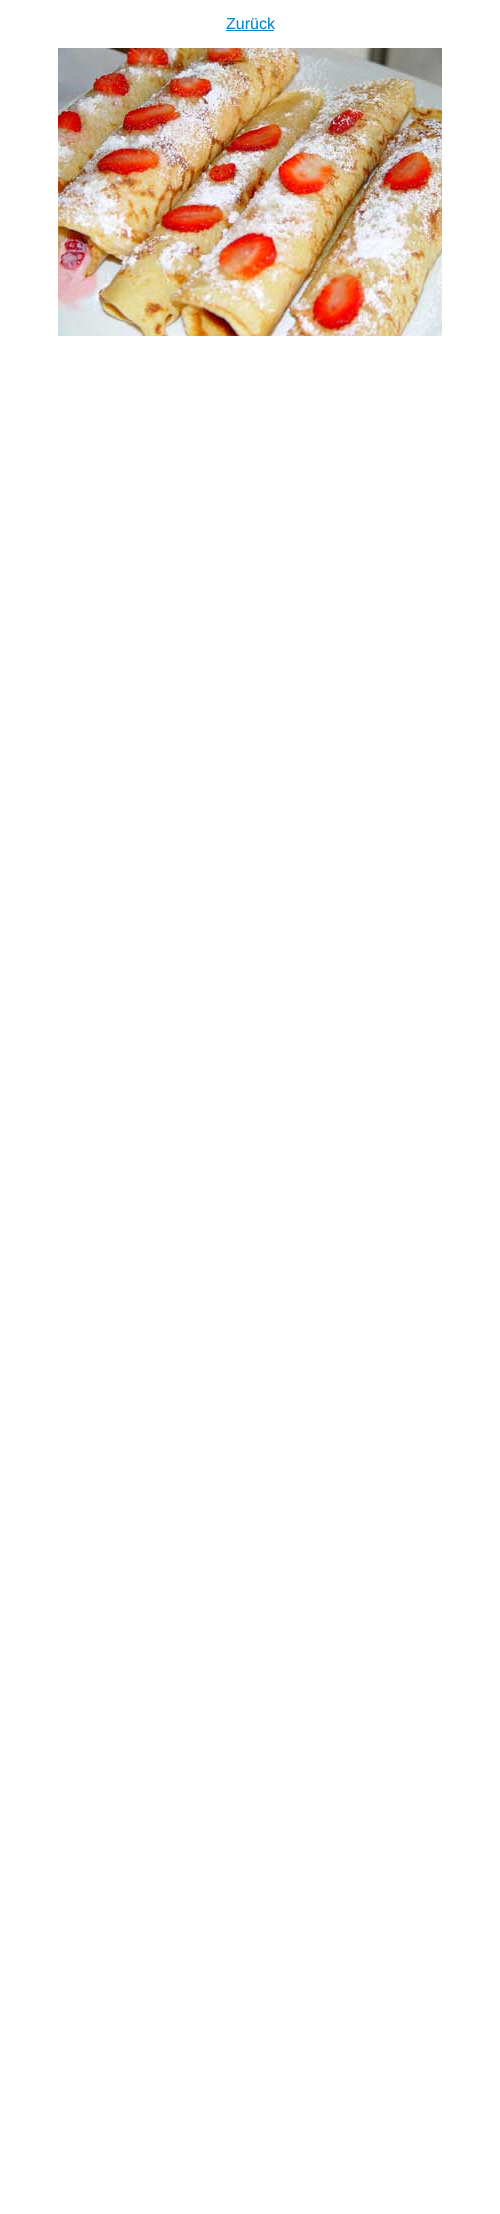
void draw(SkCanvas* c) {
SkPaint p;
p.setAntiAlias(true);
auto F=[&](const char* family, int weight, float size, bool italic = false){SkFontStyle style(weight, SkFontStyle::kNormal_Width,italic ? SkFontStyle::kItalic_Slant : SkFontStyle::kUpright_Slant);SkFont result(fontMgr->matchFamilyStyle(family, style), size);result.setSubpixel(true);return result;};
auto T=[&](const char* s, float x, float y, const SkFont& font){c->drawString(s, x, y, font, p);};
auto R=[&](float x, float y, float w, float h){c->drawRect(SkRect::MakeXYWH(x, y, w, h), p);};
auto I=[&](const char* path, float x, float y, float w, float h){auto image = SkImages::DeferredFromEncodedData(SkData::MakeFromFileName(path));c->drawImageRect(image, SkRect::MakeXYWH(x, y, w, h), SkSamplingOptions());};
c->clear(0xffffffff);
auto f1 = F("Liberation Sans",400,16);
p.setColor(0xff0088cc);
T("Zurück",226,29,f1);
R(226,30,48,1);
I("1.png",58,48,384,288);
}
